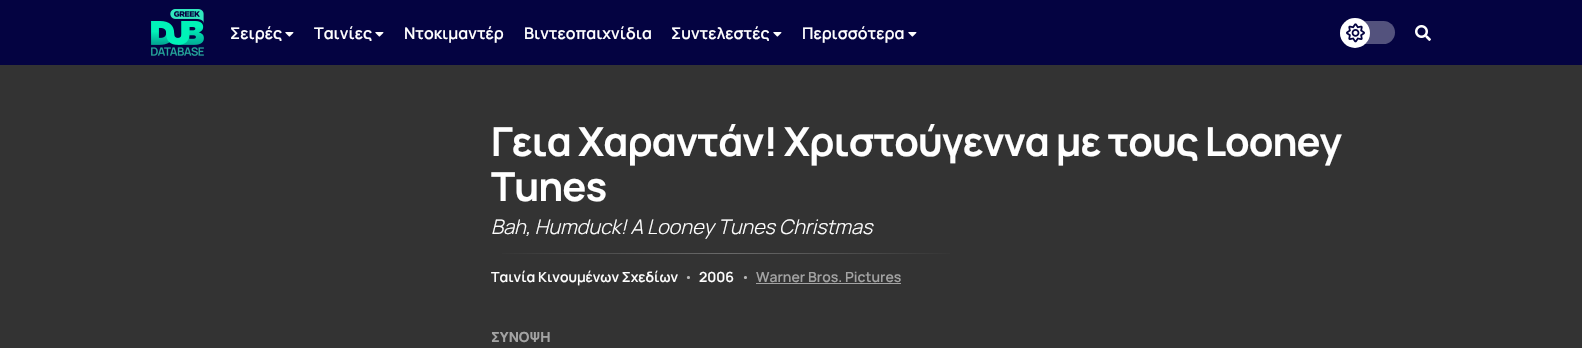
void draw(SkCanvas* c) {
SkPaint p;
p.setAntiAlias(true);
auto F=[&](const char* family, int weight, float size, bool italic = false){SkFontStyle style(weight, SkFontStyle::kNormal_Width,italic ? SkFontStyle::kItalic_Slant : SkFontStyle::kUpright_Slant);SkFont result(fontMgr->matchFamilyStyle(family, style), size);result.setSubpixel(true);return result;};
auto T=[&](const char* s, float x, float y, const SkFont& font){c->drawString(s, x, y, font, p);};
auto L=[&](const char* s, float x, float y, const SkFont& font, const SkPaint& ink, float letter, float word){std::vector<SkGlyphID> glyphs(font.countText(s, strlen(s), SkTextEncoding::kUTF8));std::vector<float> xs(glyphs.size());font.textToGlyphs(s, strlen(s), SkTextEncoding::kUTF8, glyphs);font.getXPos(glyphs, xs, x);float extra = 0;for (size_t i = 0; i < glyphs.size(); i++) {xs[i] += extra;extra += letter + word * (glyphs[i] == font.unicharToGlyph(' '));}c->drawTextBlob(SkTextBlob::MakeFromPosHGlyphs(glyphs, xs, y, font), 0, 0, ink);};
auto R=[&](float x, float y, float w, float h){c->drawRect(SkRect::MakeXYWH(x, y, w, h), p);};
auto Q=[&](float x, float y, float w, float h, float radius){c->drawRoundRect(SkRect::MakeXYWH(x, y, w, h), radius, radius, p);};
auto I=[&](const char* path, float x, float y, float w, float h){auto image = SkImages::DeferredFromEncodedData(SkData::MakeFromFileName(path));c->drawImageRect(image, SkRect::MakeXYWH(x, y, w, h), SkSamplingOptions());};
c->clear(0xff040341);
I("1.png",151,9,53,47);
auto f1 = F("Manrope",600,16);
p.setColor(0xffffffff);
T("Σειρές",230,39,f1);
I("2.png",285,32,9,5);
T("Ταινίες",314,39,f1);
I("2.png",375,32,9,5);
T("Ντοκιμαντέρ",404,39,f1);
T("Βιντεοπαιχνίδια",524,39,f1);
T("Συντελεστές",671,39,f1);
I("2.png",773,32,9,5);
T("Περισσότερα",802,39,f1);
I("2.png",908,32,9,5);
p.setColor(0xff53527d);
Q(1340,21,55,23,11.5);
p.setColor(0xffffffff);
c->drawCircle(1355,33,15,p);
I("3.png",1346,23,19,20);
I("4.png",1415,25,16,16);
p.setColor(0xff333333);
R(0,65,1582,283);
auto f2 = F("Manrope",700,40);
p.setColor(0xffffffff);
L("Γεια Χαραντάν! Χριστούγεννα με τους Looney",491,156,f2,p,-1,0);
L("Tunes",491,201,f2,p,-1,0);
auto f3 = F("Manrope",300,20,true);
T("Bah, Humduck! A Looney Tunes Christmas",491,234,f3);
{
const SkColor colors[] = {0xff333333,0xff6a6a6a,0xff333333};
const float stops[] = {0,.5,1};
const SkPoint ends[] = {{491,254}, {961,253}};
p.setShader(SkGradientShader::MakeLinear(ends, colors, stops, 3, SkTileMode::kClamp));
p.setAlpha(255);
}
R(502,253,448,1);
auto f4 = F("Manrope",600,14);
p.setShader(nullptr);
p.setColor(0xffffffff);
T("Ταινία Κινουμένων Σχεδίων",491,282,f4);
auto f5 = F("Manrope",300,14);
p.setColor(0xffb6b6b6);
T("•",684,282,f5);
p.setColor(0xffffffff);
T("2006",699,282,f4);
p.setColor(0xffb6b6b6);
T("•",741,282,f5);
p.setColor(0xffa3a3a3);
T("Warner Bros. Pictures",756,282,f4);
R(756,283,145,1);
auto f6 = F("Manrope",800,14);
T("ΣΥΝΟΨΗ",491,342,f6);
}
